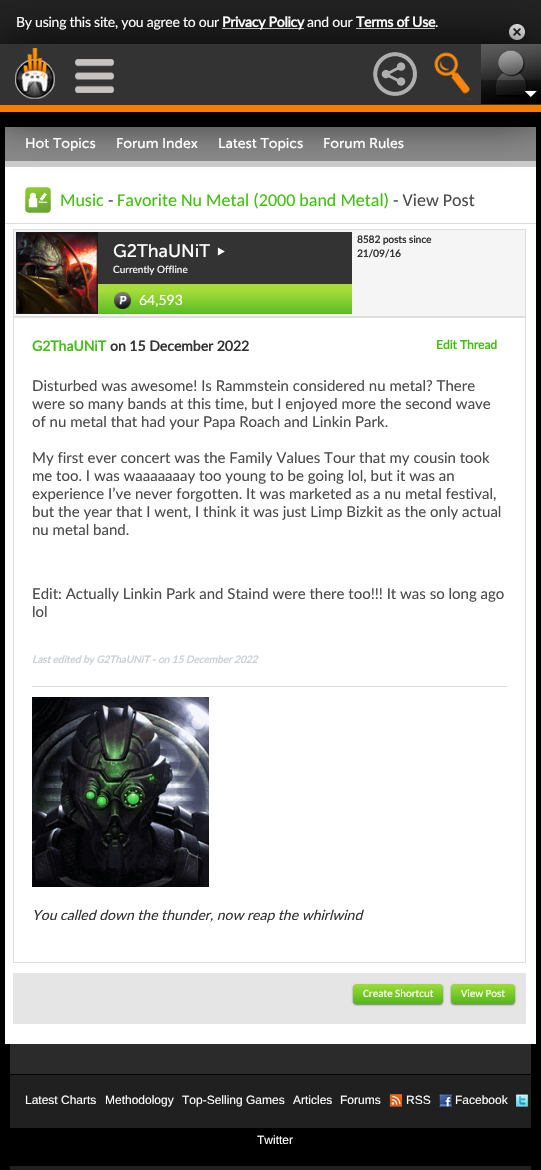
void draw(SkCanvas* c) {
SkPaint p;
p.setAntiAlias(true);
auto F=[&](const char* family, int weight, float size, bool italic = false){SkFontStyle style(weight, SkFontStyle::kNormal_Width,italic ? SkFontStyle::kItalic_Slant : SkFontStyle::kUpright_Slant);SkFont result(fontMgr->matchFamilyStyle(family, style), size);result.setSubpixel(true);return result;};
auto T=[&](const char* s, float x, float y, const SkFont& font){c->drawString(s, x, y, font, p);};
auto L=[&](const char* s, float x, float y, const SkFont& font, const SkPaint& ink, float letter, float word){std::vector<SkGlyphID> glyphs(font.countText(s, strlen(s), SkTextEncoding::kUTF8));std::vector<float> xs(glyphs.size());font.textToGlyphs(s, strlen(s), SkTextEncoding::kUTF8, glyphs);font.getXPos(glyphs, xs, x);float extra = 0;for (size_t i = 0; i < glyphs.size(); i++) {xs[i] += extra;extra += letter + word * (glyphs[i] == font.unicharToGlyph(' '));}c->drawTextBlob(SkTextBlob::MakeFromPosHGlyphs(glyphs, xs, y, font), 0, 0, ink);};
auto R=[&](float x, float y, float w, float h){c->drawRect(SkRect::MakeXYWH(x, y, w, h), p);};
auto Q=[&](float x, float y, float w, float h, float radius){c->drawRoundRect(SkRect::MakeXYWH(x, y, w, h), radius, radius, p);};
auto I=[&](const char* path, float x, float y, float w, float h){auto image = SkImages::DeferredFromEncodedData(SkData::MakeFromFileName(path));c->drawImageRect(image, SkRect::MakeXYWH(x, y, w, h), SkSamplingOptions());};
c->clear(0xff000000);
p.setColor(0xff222222);
R(0,0,541,44);
p.setColor(0xffffffff);
R(222,28,82,1);
R(356,28,79,1);
I("7.png",509,24,16,16);
R(5,167,531,877);
p.setColor(0xff8a8a8a);
R(5,127,531,34);
p.setColor(0xffcdcdcd);
R(5,161,531,6);
I("8.png",25,187,26,26);
p.setColor(0xff000000);
p.setMaskFilter(SkMaskFilter::MakeBlur(kNormal_SkBlurStyle, 25));
c->drawRect(SkRect::MakeXYWH(0,45,541,68),p);
p.setMaskFilter(nullptr);
p.setColor(0xff333333);
R(0,44,541,61);
I("1.png",15,48,40,51);
I("2.png",75,59,39,34);
I("3.png",373,52,44,44);
I("4.png",434,52,38,48);
I("5.png",481,44,60,60);
I("6.png",481,80,60,18);
p.setColor(0xfff97b00);
R(0,105,541,7);
auto f1 = F("Lato",400,14);
p.setColor(0xffffffff);
L("By using this site, you agree to our",16,27,f1,p,-.25,0);
auto f2 = F("Lato",700,14);
L("Privacy Policy",222,27,f2,p,-.25,0);
L("and our",307,27,f1,p,-.25,0);
L("Terms of Use",356,27,f2,p,-.25,0);
L(".",435,27,f1,p,-.25,0);
auto f3 = F("Museo Sans",400,14);
T("Hot Topics",25,148,f3);
T("Forum Index",116,148,f3);
T("Latest Topics",218,148,f3);
T("Forum Rules",323,148,f3);
auto f4 = F("Carlito",400,18);
p.setColor(0xff42c011);
T("Music",60,206,f4);
p.setColor(0xff4b4b4b);
T("-",108,206,f4);
p.setColor(0xff42c011);
T("Favorite Nu Metal (2000 band Metal)",117,206,f4);
p.setColor(0xff4b4b4b);
T("- View Post",393,206,f4);
p.setColor(0xffdddddd);
R(5,223,531,1);
p.setColor(0xfff5f5f5);
c->drawRect(SkRect::MakeXYWH(13.5,229.5,512,87),p);
p.setStroke(true);
p.setStrokeWidth(1);
p.setColor(0xffdddddd);
c->drawRect(SkRect::MakeXYWH(13.5,229.5,512,87),p);
I("9.png",16,232,82,82);
p.setStroke(false);
{
const SkColor colors[] = {0xffa5dc39,0xffa5dc39,0xff59bc25};
const float stops[] = {0,.71,1};
const SkPoint ends[] = {{98,232}, {98,314}};
p.setShader(SkGradientShader::MakeLinear(ends, colors, stops, 3, SkTileMode::kClamp));
p.setAlpha(255);
}
R(98,284,254,30);
p.setShader(nullptr);
p.setColor(0xff333333);
R(98,232,254,52);
I("10.png",217,247,8,9);
auto f5 = F("Museo Sans",400,18);
p.setColor(0xffffffff);
T("G2ThaUNiT",113,257,f5);
auto f6 = F("Lato",400,10);
T("Currently Offline",113,273,f6);
I("11.png",114,292,17,17);
T("64,593",139,305,f1);
auto f7 = F("Lato",700,10);
p.setColor(0xff333333);
T("8582 posts since",357,243,f7);
T("21/09/16",357,257,f7);
p.setStroke(true);
p.setColor(0xffdddddd);
c->drawRect(SkRect::MakeXYWH(13.5,317.5,512,645),p);
p.setStroke(false);
p.setColor(0xff42c011);
T("G2ThaUNiT",32,351,f2);
p.setColor(0xff333333);
T("on 15 December 2022",110,351,f2);
auto f8 = F("Lato",700,12);
p.setColor(0xff42c011);
T("Edit Thread",436,349,f8);
auto f9 = F("Lato",400,15);
p.setColor(0xff4b4b4b);
T("Disturbed was awesome! Is Rammstein considered nu metal? There",32,391,f9);
T("were so many bands at this time, but I enjoyed more the second wave",32,409,f9);
T("of nu metal that had your Papa Roach and Linkin Park.",32,427,f9);
T("My first ever concert was the Family Values Tour that my cousin took",32,463,f9);
T("me too. I was waaaaaaay too young to be going lol, but it was an",32,481,f9);
T("experience I’ve never forgotten. It was marketed as a nu metal festival,",32,499,f9);
T("but the year that I went, I think it was just Limp Bizkit as the only actual",32,517,f9);
T("nu metal band.",32,535,f9);
T("Edit: Actually Linkin Park and Staind were there too!!! It was so long ago",32,599,f9);
T("lol",32,617,f9);
auto f10 = F("Lato",700,10,true);
p.setColor(0xffcdd1d6);
T("Last edited by G2ThaUNiT - on 15 December 2022",32,663,f10);
p.setColor(0xffdddddd);
R(32,686,475,1);
I("12.png",32,697,177,190);
auto f11 = F("Lato",400,14,true);
p.setColor(0xff333333);
T("You called down the thunder, now reap the whirlwind",32,920,f11);
p.setColor(0xffe5e5e5);
R(13,973,513,51);
p.setColor(0xff767676);
p.setMaskFilter(SkMaskFilter::MakeBlur(kNormal_SkBlurStyle, 1));
c->drawRoundRect(SkRect::MakeXYWH(353,985,90,20),4,4,p);
p.setMaskFilter(nullptr);
{
const SkColor colors[] = {0xff9edc36,0xff54b61d};
const float stops[] = {0,1};
const SkPoint ends[] = {{353,984}, {353,1004}};
p.setShader(SkGradientShader::MakeLinear(ends, colors, stops, 2, SkTileMode::kClamp));
p.setAlpha(255);
}
Q(353,984,90,20,4);
auto f12 = F("Carlito",400,11);
p.setShader(nullptr);
p.setColor(0xffffffff);
T("Create Shortcut",363,997,f12);
p.setColor(0xff767676);
p.setMaskFilter(SkMaskFilter::MakeBlur(kNormal_SkBlurStyle, 1));
c->drawRoundRect(SkRect::MakeXYWH(451,985,64,20),4,4,p);
p.setMaskFilter(nullptr);
{
const SkColor colors[] = {0xff9edc36,0xff54b61d};
const float stops[] = {0,1};
const SkPoint ends[] = {{451,984}, {451,1004}};
p.setShader(SkGradientShader::MakeLinear(ends, colors, stops, 2, SkTileMode::kClamp));
p.setAlpha(255);
}
Q(451,984,64,20,4);
p.setShader(nullptr);
p.setColor(0xffffffff);
T("View Post",461,997,f12);
p.setColor(0xff2b2b2b);
R(10,1044,521,30);
p.setColor(0xff202020);
R(10,1075,521,53);
auto f13 = F("Liberation Sans",400,12);
p.setColor(0xffffffff);
T("Latest Charts",25,1104,f13);
T("Methodology",105,1104,f13);
T("Top-Selling Games",182,1104,f13);
T("Articles",293,1104,f13);
T("Forums",340,1104,f13);
I("13.png",389,1094,13,13);
T("RSS",406,1104,f13);
I("14.png",439,1094,13,13);
T("Facebook",455,1104,f13);
I("15.png",516,1094,13,13);
T("Twitter",257,1144,f13);
p.setColor(0xff202020);
R(10,1166,521,4);
}
